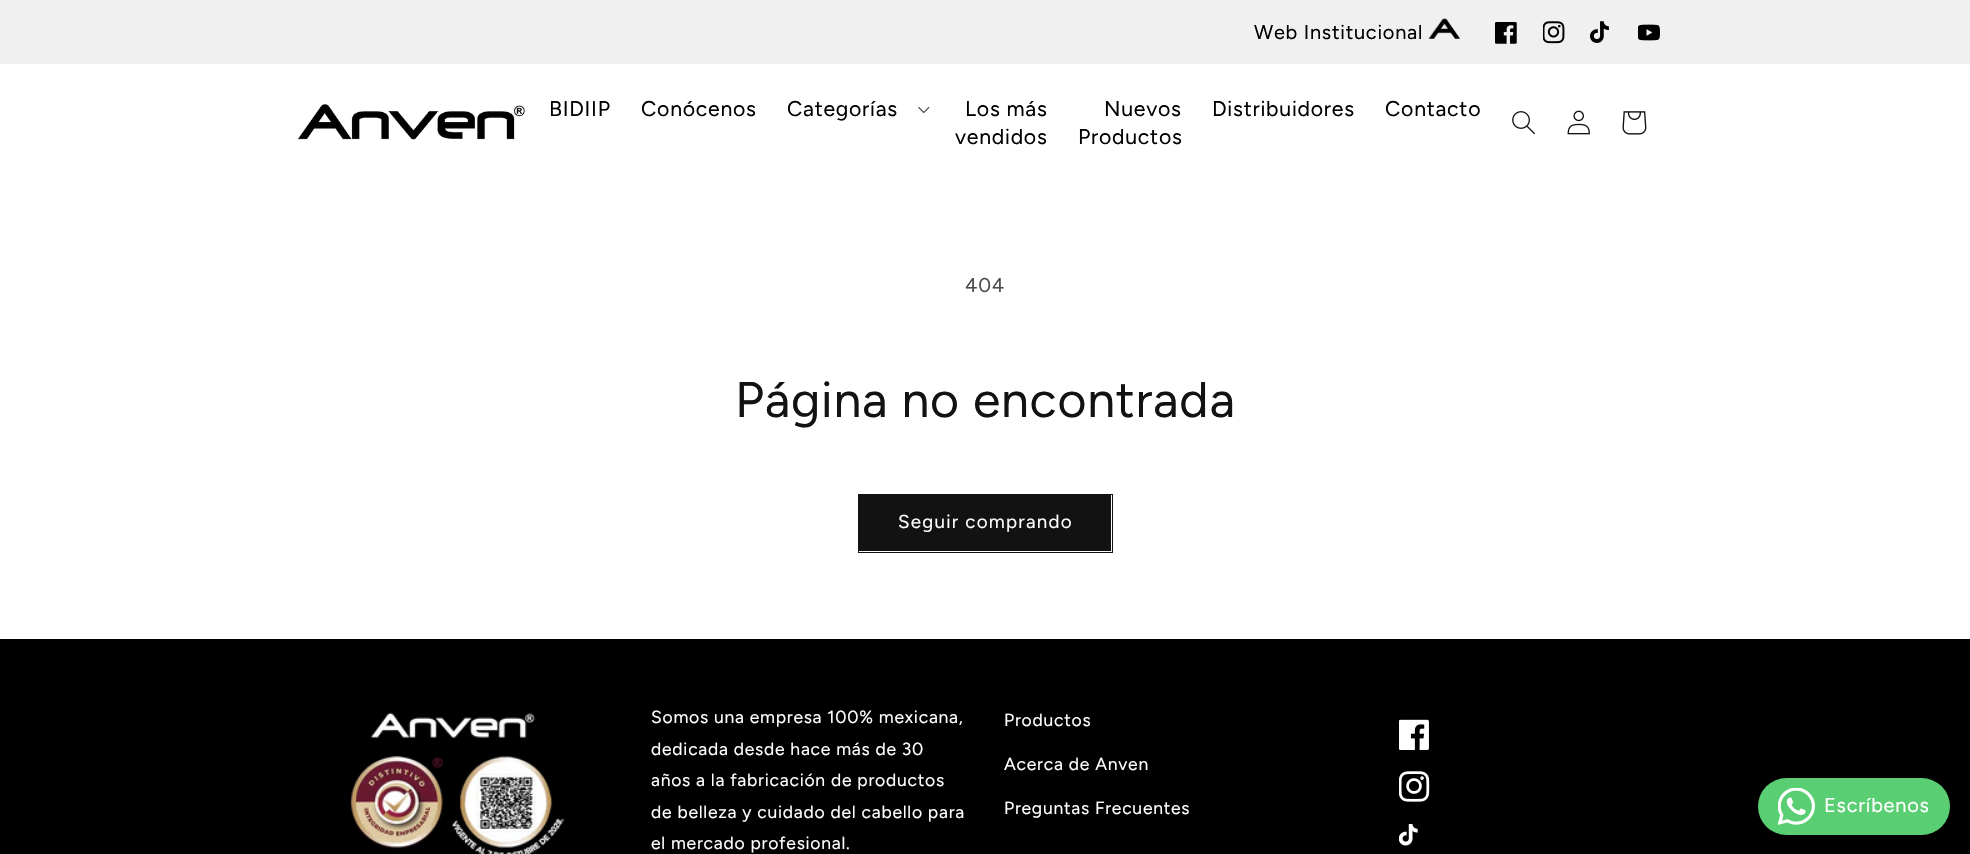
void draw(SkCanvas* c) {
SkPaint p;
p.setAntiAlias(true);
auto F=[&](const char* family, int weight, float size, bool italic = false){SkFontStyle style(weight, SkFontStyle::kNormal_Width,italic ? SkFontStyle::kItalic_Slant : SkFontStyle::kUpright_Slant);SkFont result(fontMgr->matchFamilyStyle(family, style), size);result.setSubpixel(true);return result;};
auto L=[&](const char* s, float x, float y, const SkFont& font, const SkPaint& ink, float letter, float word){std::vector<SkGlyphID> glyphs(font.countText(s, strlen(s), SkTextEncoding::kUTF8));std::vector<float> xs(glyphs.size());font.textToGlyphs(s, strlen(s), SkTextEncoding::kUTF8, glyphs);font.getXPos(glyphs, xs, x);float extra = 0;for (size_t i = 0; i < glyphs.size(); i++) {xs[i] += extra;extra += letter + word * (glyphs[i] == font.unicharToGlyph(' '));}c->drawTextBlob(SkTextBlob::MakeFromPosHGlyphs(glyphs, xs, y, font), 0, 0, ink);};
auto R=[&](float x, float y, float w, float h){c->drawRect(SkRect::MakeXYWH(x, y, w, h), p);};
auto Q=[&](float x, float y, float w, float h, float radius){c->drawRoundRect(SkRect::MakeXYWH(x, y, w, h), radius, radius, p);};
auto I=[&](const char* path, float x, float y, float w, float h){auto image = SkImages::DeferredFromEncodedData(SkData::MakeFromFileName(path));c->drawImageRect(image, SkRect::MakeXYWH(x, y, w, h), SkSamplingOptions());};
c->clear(0xffffffff);
p.setColor(0xfff0f0f0);
R(0,0,1970,64);
auto f1 = F("Figtree",400,20);
p.setColor(0xff000000);
L("Web Institucional",1254,39,f1,p,.75,0);
I("1.png",1428,18,32,21);
I("2.png",1495,22,22,22);
I("3.png",1543,21,22,23);
I("4.png",1590,21,19,22);
I("5.png",1638,24,22,17);
I("6.png",298,103,227,37);
auto f2 = F("Figtree",400,21.25);
L("BIDIIP",549,116,f2,p,.75,0);
L("Conócenos",641,116,f2,p,.75,0);
L("Categorías",787,116,f2,p,.75,0);
I("7.png",918,106,12,8);
L("Los más",965,116,f2,p,.75,0);
L("vendidos",955,144,f2,p,.75,0);
L("Nuevos",1104,116,f2,p,.75,0);
L("Productos",1078,144,f2,p,.75,0);
L("Distribuidores",1212,116,f2,p,.75,0);
L("Contacto",1385,116,f2,p,.75,0);
I("8.png",1512,111,23,24);
I("9.png",1567,110,23,25);
I("10.png",1622,111,25,24);
p.setColor(0xff4d4d4d);
L("404",965,292,f1,p,.75,0);
auto f3 = F("Figtree",400,50);
p.setColor(0xff121212);
L("Página no encontrada",735,417,f3,p,.75,0);
p.setStroke(true);
p.setStrokeWidth(1);
c->drawRect(SkRect::MakeXYWH(858.5,494.5,254,58),p);
p.setStroke(false);
R(859,495,252,56);
auto f4 = F("Figtree",400,18.75);
p.setColor(0xffffffff);
L("Seguir comprando",898,528,f4,p,1.25,0);
p.setColor(0xff000000);
R(0,639,1970,215);
I("11.png",350,712,214,142);
auto f5 = F("Figtree",400,17.5);
p.setColor(0xffffffff);
L("Somos una empresa 100% mexicana,",651,723,f5,p,.75,0);
L("dedicada desde hace más de 30",651,755,f5,p,.75,0);
L("años a la fabricación de productos",651,786,f5,p,.75,0);
L("de belleza y cuidado del cabello para",651,818,f5,p,.75,0);
L("el mercado profesional.",651,849,f5,p,.75,0);
L("Productos",1004,726,f5,p,.75,0);
L("Acerca de Anven",1004,770,f5,p,.75,0);
L("Preguntas Frecuentes",1004,814,f5,p,.75,0);
I("12.png",1399,719,30,31);
I("13.png",1399,771,31,31);
I("14.png",1399,824,19,22);
p.setColor(0xff59ce72);
Q(1758,778,192,57,28.5);
I("15.png",1778,788,37,37);
p.setColor(0xffffffff);
L("Escríbenos",1824,812,f1,p,.75,0);
}
